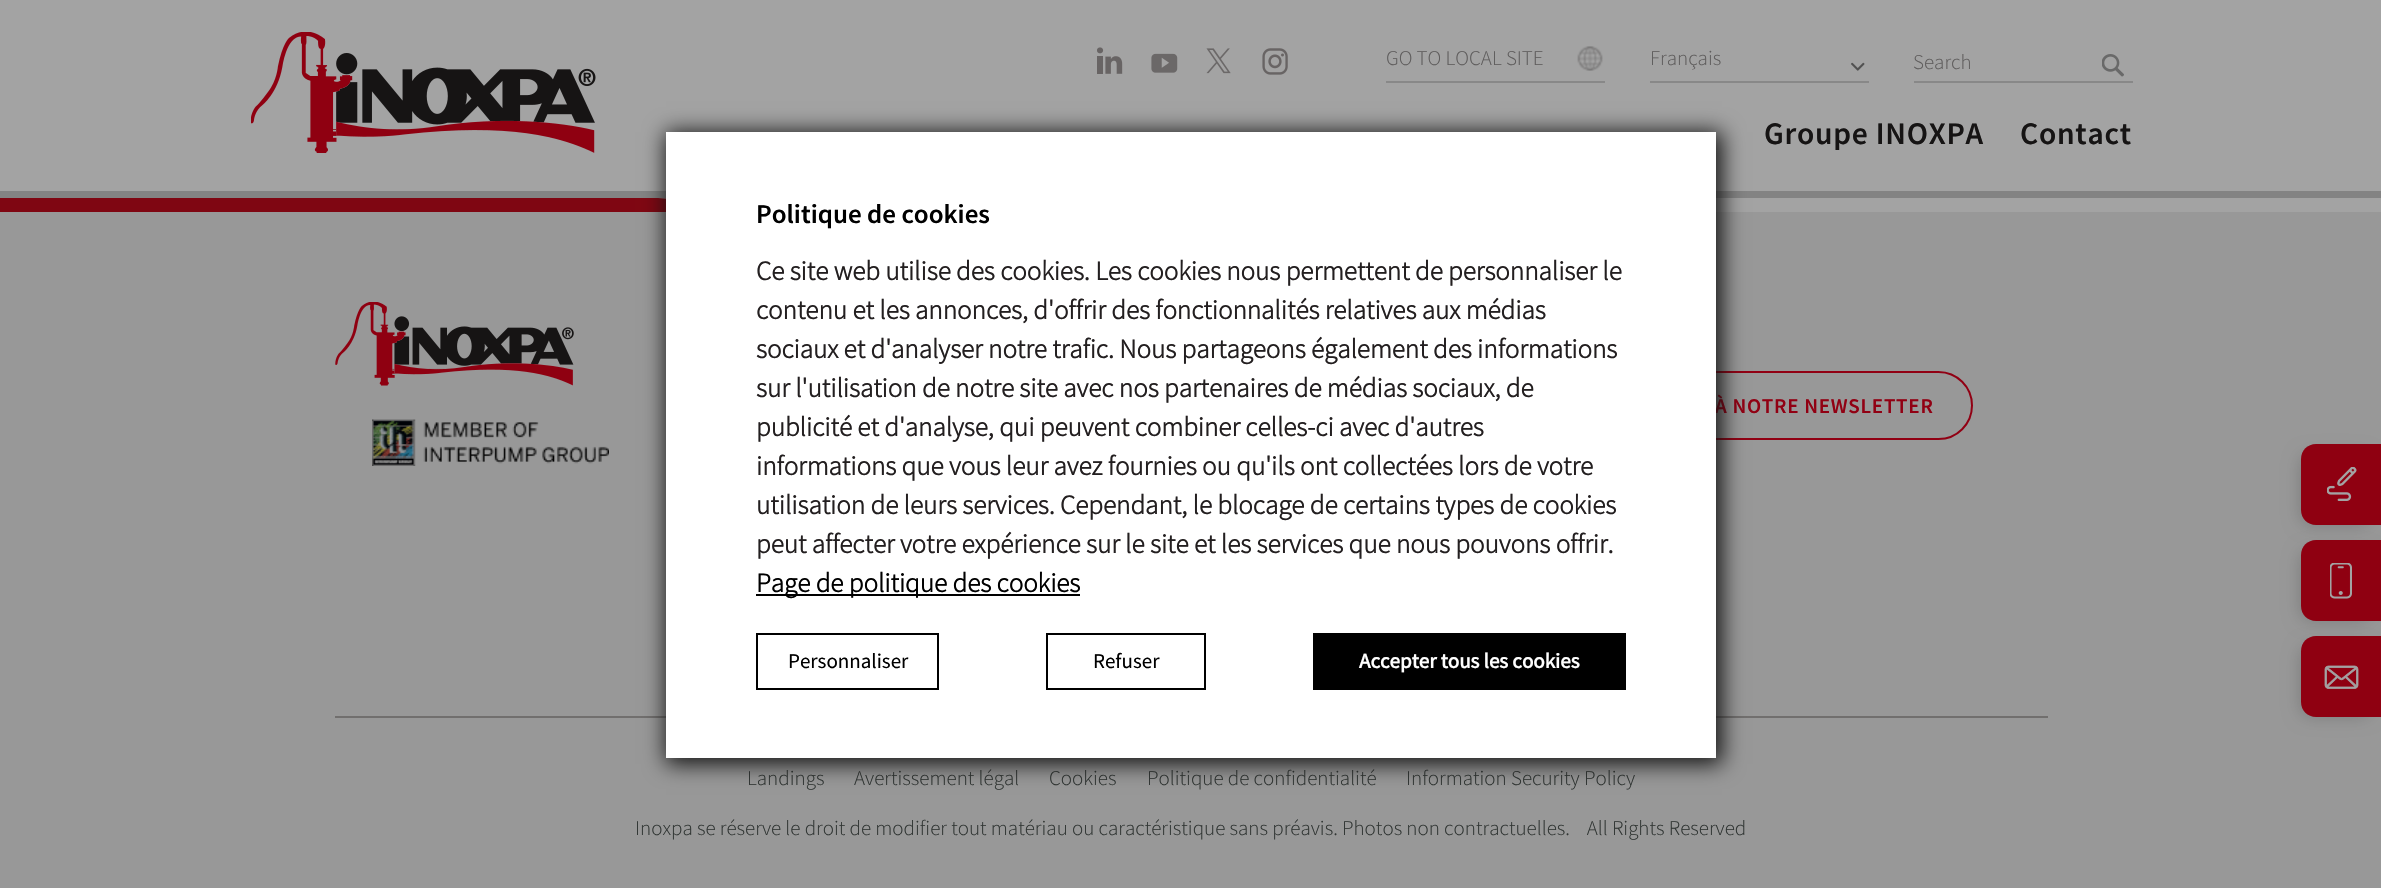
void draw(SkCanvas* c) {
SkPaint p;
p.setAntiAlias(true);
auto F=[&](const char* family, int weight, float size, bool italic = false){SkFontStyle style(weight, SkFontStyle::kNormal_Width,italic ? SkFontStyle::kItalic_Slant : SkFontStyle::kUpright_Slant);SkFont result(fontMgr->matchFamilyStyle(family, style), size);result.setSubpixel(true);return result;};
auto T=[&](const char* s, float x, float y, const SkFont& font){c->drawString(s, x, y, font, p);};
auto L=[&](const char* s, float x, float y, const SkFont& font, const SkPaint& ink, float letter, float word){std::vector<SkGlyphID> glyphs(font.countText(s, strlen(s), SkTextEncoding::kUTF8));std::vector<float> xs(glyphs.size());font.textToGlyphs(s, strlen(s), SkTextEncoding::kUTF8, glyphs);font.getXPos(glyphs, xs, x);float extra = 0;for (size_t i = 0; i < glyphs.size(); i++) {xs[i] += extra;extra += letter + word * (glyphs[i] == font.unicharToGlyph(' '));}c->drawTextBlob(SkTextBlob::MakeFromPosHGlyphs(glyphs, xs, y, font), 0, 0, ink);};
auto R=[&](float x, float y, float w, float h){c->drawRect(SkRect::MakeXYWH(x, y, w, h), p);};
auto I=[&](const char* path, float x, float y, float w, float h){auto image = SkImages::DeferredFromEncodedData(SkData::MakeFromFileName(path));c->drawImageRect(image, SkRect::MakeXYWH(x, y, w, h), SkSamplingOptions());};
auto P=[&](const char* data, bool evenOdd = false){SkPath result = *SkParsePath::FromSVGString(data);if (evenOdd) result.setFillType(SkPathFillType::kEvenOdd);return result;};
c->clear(0xffa3a3a3);
p.setColor(0xff7f0612);
c->drawPath(P("M0 145v67h832z"),p);
p.setColor(0xffa3a3a3);
R(0,145,571,46);
p.setColor(0xff838383);
R(0,191,2381,7);
I("1.png",251,32,345,121);
I("2.png",1097,47,26,27);
I("3.png",1151,53,27,20);
I("4.png",1206,48,25,26);
I("5.png",1262,48,26,27);
p.setColor(0xff888888);
R(1386,81,219,2);
auto f1 = F("Source Sans Pro",300,21);
p.setColor(0xff5f5d5d);
T("GO TO LOCAL SITE",1386,65,f1);
I("6.png",1577,46,26,25);
p.setColor(0xff888888);
R(1650,81,219,2);
p.setColor(0xff5f5d5d);
T("Français",1650,65,f1);
I("7.png",1851,62,14,9);
p.setColor(0xff888888);
R(1914,81,219,2);
p.setColor(0xff5f5d5d);
T("Search",1913,69,f1);
I("8.png",2102,54,22,23);
auto f2 = F("Source Sans Pro",600,31.5);
p.setColor(0xff161414);
L("Groupe INOXPA",1764,144,f2,p,.75,0);
L("Contact",2020,144,f2,p,.75,0);
p.setColor(0xff989898);
R(0,212,2381,676);
I("9.png",335,302,239,84);
I("10.png",372,419,237,47);
p.setStroke(true);
p.setStrokeWidth(2);
p.setColor(0xff910013);
c->drawRoundRect(SkRect::MakeXYWH(1518,372,454,67),33.5,33.5,p);
auto f3 = F("Source Sans Pro",600,21);
p.setStroke(false);
L("À NOTRE NEWSLETTER",1715,413,f3,p,.75,0);
p.setColor(0xff716f6e);
R(335,716,1713,2);
p.setColor(0xff313634);
T("Landings",747,785,f1);
T("Avertissement légal",854,785,f1);
T("Cookies",1049,785,f1);
T("Politique de confidentialité",1147,785,f1);
T("Information Security Policy",1406,785,f1);
T("Inoxpa se réserve le droit de modifier tout matériau ou caractéristique sans préavis. Photos non contractuelles.    All Rights Reserved",635,835,f1);
p.setColor(0x33000000);
p.setMaskFilter(SkMaskFilter::MakeBlur(kNormal_SkBlurStyle, 9));
c->drawRoundRect(SkRect::MakeXYWH(2301,455,69,69),9,9,p);
p.setMaskFilter(nullptr);
p.setColor(0xff8f0011);
c->drawPath(P("M2316 444h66v81h-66c-8.5 0-15-6.5-15-15v-51c0-8.5 6.5-15 15-15z"),p);
I("11.png",2327,467,30,34);
p.setColor(0x33000000);
p.setMaskFilter(SkMaskFilter::MakeBlur(kNormal_SkBlurStyle, 9));
c->drawRoundRect(SkRect::MakeXYWH(2301,551,69,69),9,9,p);
p.setMaskFilter(nullptr);
p.setColor(0xff8f0011);
c->drawPath(P("M2316 540h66v81h-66c-8.5 0-15-6.5-15-15v-51c0-8.5 6.5-15 15-15z"),p);
I("12.png",2330,563,22,36);
p.setColor(0x33000000);
p.setMaskFilter(SkMaskFilter::MakeBlur(kNormal_SkBlurStyle, 9));
c->drawRoundRect(SkRect::MakeXYWH(2301,647,69,69),9,9,p);
p.setMaskFilter(nullptr);
p.setColor(0xff8f0011);
c->drawPath(P("M2316 636h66v81h-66c-8.5 0-15-6.5-15-15v-51c0-8.5 6.5-15 15-15z"),p);
I("13.png",2324,665,35,24);
p.setColor(0xff121212);
p.setMaskFilter(SkMaskFilter::MakeBlur(kNormal_SkBlurStyle, 10.5));
c->drawRect(SkRect::MakeXYWH(666,132,1056,632),p);
p.setMaskFilter(nullptr);
p.setColor(0xffffffff);
R(666,132,1050,626);
auto f4 = F("Source Sans Pro",600,27);
p.setColor(0xff000000);
T("Politique de cookies",756,223,f4);
auto f5 = F("Source Sans Pro",700,27);
p.setColor(0xff231f20);
T("Ce site web utilise des cookies. Les cookies nous permettent de personnaliser le",756,280,f5);
T("contenu et les annonces, d'offrir des fonctionnalités relatives aux médias",756,319,f5);
T("sociaux et d'analyser notre trafic. Nous partageons également des informations",756,358,f5);
T("sur l'utilisation de notre site avec nos partenaires de médias sociaux, de",756,397,f5);
T("publicité et d'analyse, qui peuvent combiner celles-ci avec d'autres",756,436,f5);
T("informations que vous leur avez fournies ou qu'ils ont collectées lors de votre",756,475,f5);
T("utilisation de leurs services. Cependant, le blocage de certains types de cookies",756,514,f5);
T("peut affecter votre expérience sur le site et les services que nous pouvons offrir.",756,553,f5);
p.setColor(0xff000000);
R(756,594,324,2);
T("Page de politique des cookies",756,592,f5);
p.setStroke(true);
c->drawRect(SkRect::MakeXYWH(757,634,181,55),p);
auto f6 = F("Source Sans Pro",400,21);
p.setStroke(false);
T("Personnaliser",788,668,f6);
p.setStroke(true);
c->drawRect(SkRect::MakeXYWH(1047,634,158,55),p);
p.setStroke(false);
T("Refuser",1093,668,f6);
R(1313,633,313,57);
auto f7 = F("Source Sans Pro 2",700,21);
p.setColor(0xffffffff);
T("Accepter tous les cookies",1359,668,f7);
}
